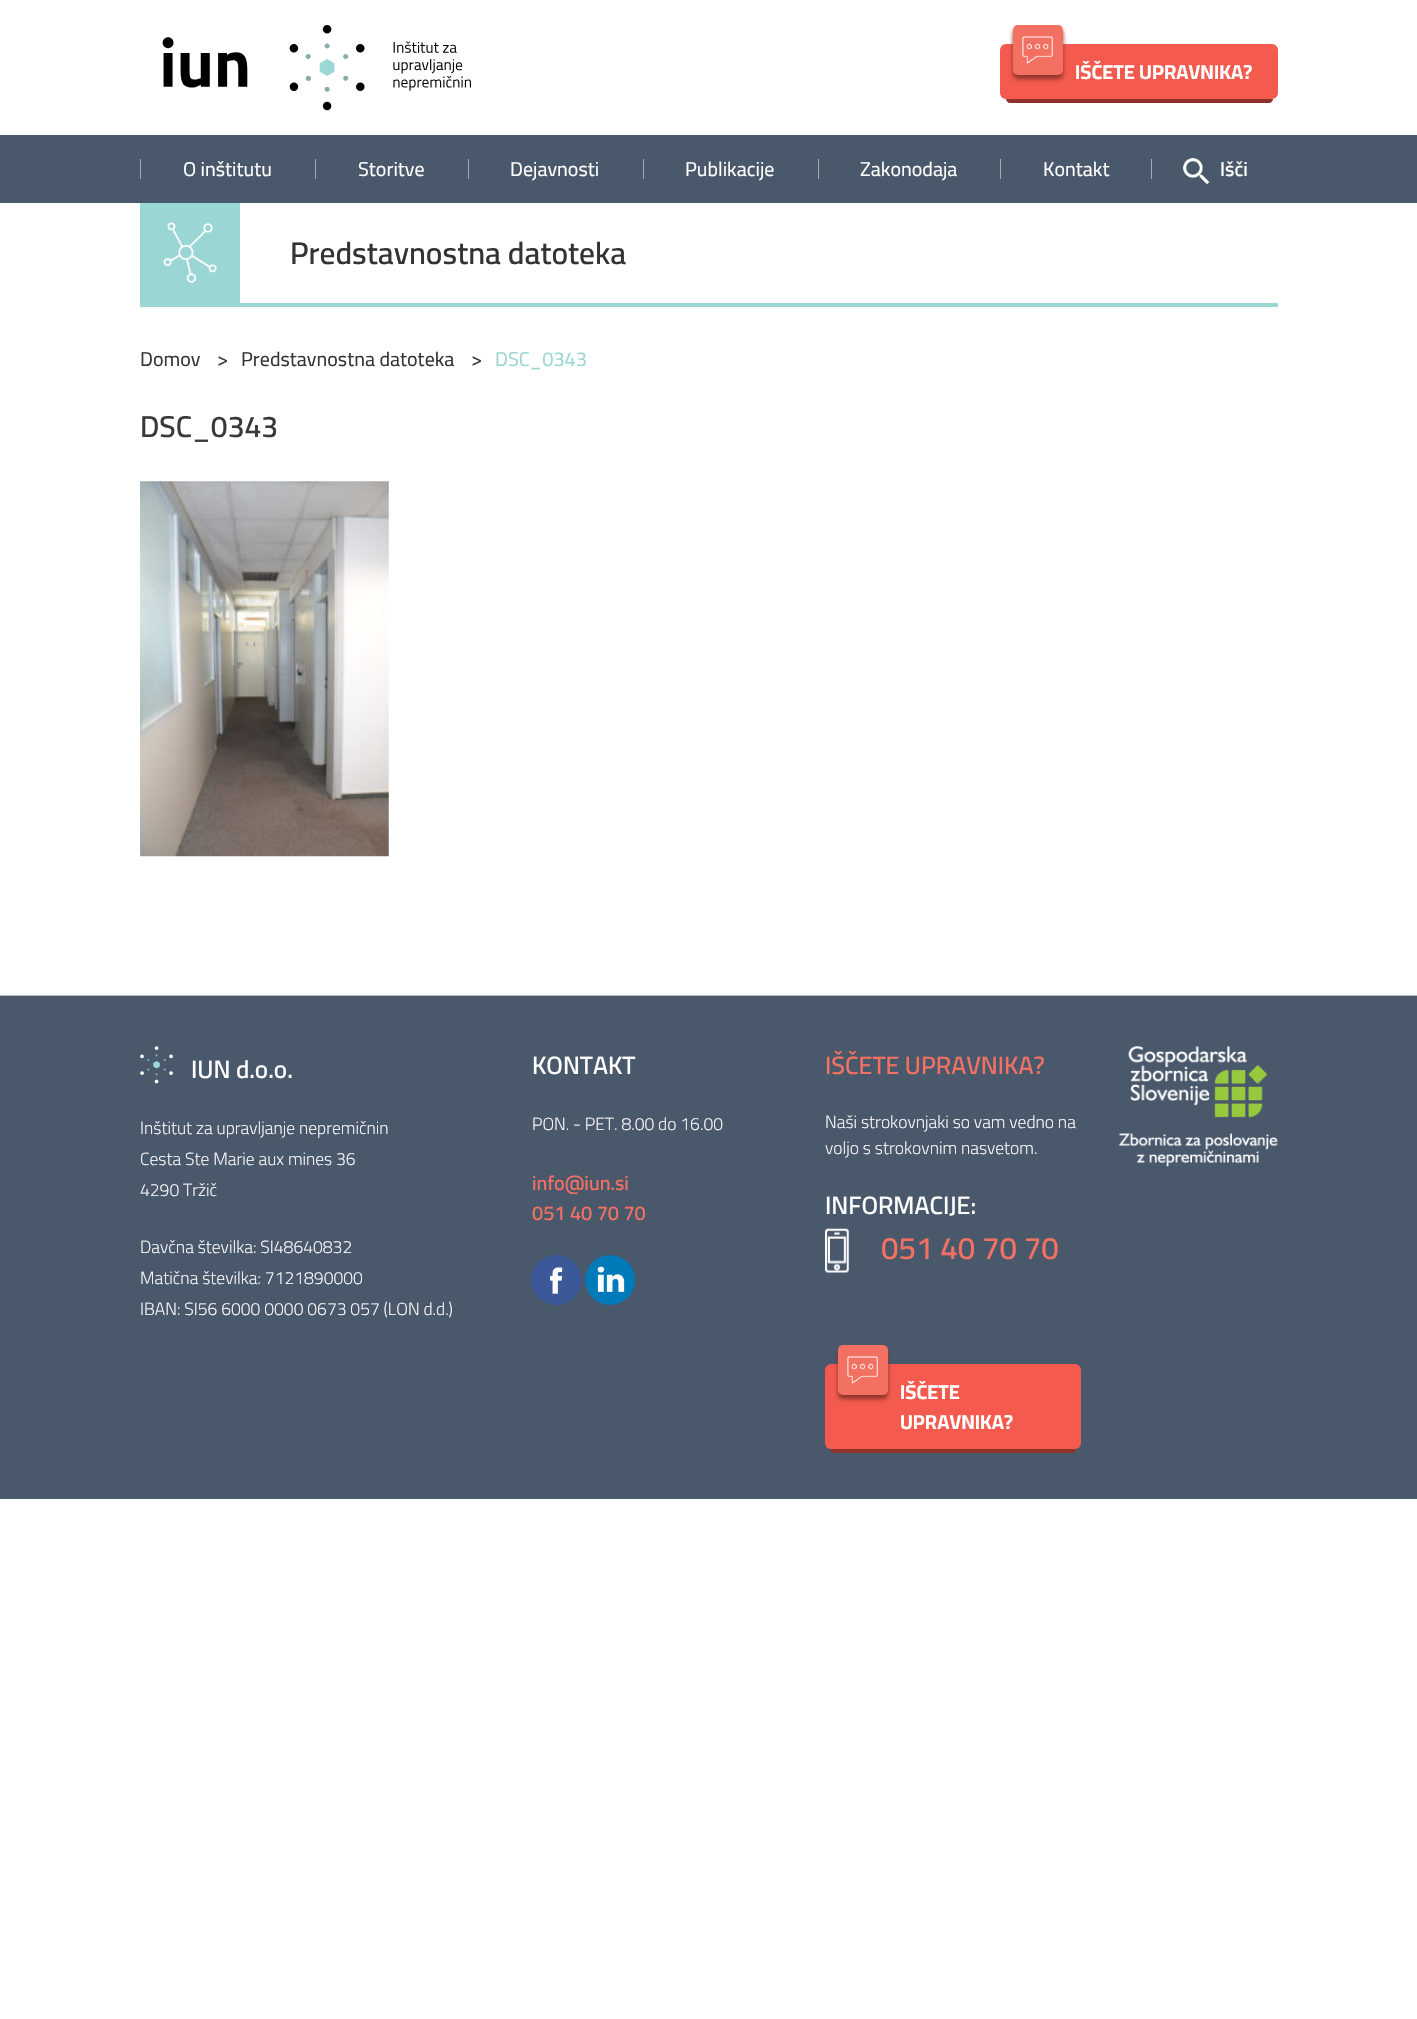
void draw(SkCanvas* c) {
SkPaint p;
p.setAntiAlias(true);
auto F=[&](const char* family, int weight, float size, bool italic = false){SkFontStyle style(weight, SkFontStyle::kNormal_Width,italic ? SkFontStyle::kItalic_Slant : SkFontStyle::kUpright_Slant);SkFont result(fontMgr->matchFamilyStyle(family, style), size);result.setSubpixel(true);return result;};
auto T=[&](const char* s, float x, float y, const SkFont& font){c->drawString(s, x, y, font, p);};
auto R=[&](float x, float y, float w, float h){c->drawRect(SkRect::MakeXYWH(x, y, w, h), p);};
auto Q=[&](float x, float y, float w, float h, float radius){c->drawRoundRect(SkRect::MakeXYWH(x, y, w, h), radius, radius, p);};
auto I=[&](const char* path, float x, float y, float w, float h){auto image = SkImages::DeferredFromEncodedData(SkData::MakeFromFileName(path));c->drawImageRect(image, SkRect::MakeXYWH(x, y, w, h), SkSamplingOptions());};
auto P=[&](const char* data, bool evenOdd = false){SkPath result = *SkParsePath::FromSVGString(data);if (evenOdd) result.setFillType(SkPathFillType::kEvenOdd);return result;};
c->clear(0xffffffff);
I("1.png",162,25,309,86);
p.setColor(0xfff45a4e);
Q(1000,44,278,55,6);
p.setColor(0xff8f3229);
p.setMaskFilter(SkMaskFilter::MakeBlur(kNormal_SkBlurStyle, 2));
c->drawRoundRect(SkRect::MakeXYWH(1013,29,50,50),5,5,p);
p.setMaskFilter(nullptr);
p.setColor(0xfff37163);
Q(1013,25,50,50,5);
I("2.png",1022,36,31,28);
auto f1 = F("Cairo",700,20);
p.setColor(0xffffffff);
T("IŠČETE UPRAVNIKA?",1075,79,f1);
p.setColor(0xff8f3229);
c->drawPath(P("M1006 99h267c0 2-2 4-4 4h-259c-2 0-4-2-4-4z"),p);
p.setColor(0xff4a586b);
R(0,135,1417,68);
p.setColor(0xffa5acb5);
R(140,159,1,20);
auto f2 = F("Cairo",400,20);
p.setColor(0xffffffff);
T("O inštitutu",183,176,f2);
p.setColor(0xffa5acb5);
R(315,159,1,20);
p.setColor(0xffffffff);
T("Storitve",358,176,f2);
p.setColor(0xffa5acb5);
R(468,159,1,20);
p.setColor(0xffffffff);
T("Dejavnosti",510,176,f2);
p.setColor(0xffa5acb5);
R(643,159,1,20);
p.setColor(0xffffffff);
T("Publikacije",685,176,f2);
p.setColor(0xffa5acb5);
R(818,159,1,20);
p.setColor(0xffffffff);
T("Zakonodaja",860,176,f2);
p.setColor(0xffa5acb5);
R(1000,159,1,20);
p.setColor(0xffffffff);
T("Kontakt",1043,176,f2);
p.setColor(0xffa5acb5);
R(1151,159,1,20);
I("3.png",1183,158,27,27);
auto f3 = F("Cairo",600,20);
p.setColor(0xffffffff);
T("Išči",1220,176,f3);
p.setColor(0xff9ad6d4);
R(140,303,1138,4);
R(140,203,100,100);
I("4.png",163,222,54,61);
auto f4 = F("Cairo",600,31.25);
p.setColor(0xff333333);
T("Predstavnostna datoteka",290,264,f4);
T("Domov",140,366,f2);
p.setColor(0xff373a3c);
T(">",217,366,f2);
p.setColor(0xff333333);
T("Predstavnostna datoteka",241,366,f2);
p.setColor(0xff373a3c);
T(">",471,366,f2);
p.setColor(0xff9ad6d4);
T("DSC_0343",495,366,f2);
auto f5 = F("Cairo",600,30);
p.setColor(0xff373a3c);
T("DSC_0343",140,437,f5);
I("5.png",140,481,249,376);
p.setColor(0xff4a586b);
R(0,996,1417,503);
p.setColor(0xffbdbec0);
R(0,995,1417,1);
I("6.png",140,1046,33,38);
auto f6 = F("Cairo",600,25);
p.setColor(0xffffffff);
T("IUN d.o.o.",191,1078,f6);
auto f7 = F("Cairo",300,17.5);
T("Inštitut za upravljanje nepremičnin",140,1134,f7);
T("Cesta Ste Marie aux mines 36",140,1165,f7);
T("4290 Tržič",140,1196,f7);
T("Davčna številka: SI48640832",140,1253,f7);
T("Matična številka: 7121890000",140,1284,f7);
T("IBAN: SI56 6000 0000 0673 057 (LON d.d.)",140,1315,f7);
T("KONTAKT",532,1074,f6);
T("PON. - PET. 8.00 do 16.00",532,1130,f7);
p.setColor(0xfff27163);
T("info@iun.si",532,1190,f3);
T("051 40 70 70",532,1220,f3);
I("7.png",531,1255,51,50);
I("8.png",585,1255,50,50);
T("IŠČETE UPRAVNIKA?",825,1074,f6);
p.setColor(0xffffffff);
T("Naši strokovnjaki so vam vedno na",825,1128,f7);
T("voljo s strokovnim nasvetom.",825,1154,f7);
T("INFORMACIJE:",825,1214,f6);
I("9.png",825,1228,24,45);
p.setColor(0xfff27163);
T("051 40 70 70",881,1259,f4);
p.setColor(0xfff45a4e);
Q(825,1364,256,85,6);
p.setColor(0xff8f3229);
p.setMaskFilter(SkMaskFilter::MakeBlur(kNormal_SkBlurStyle, 2));
c->drawRoundRect(SkRect::MakeXYWH(838,1349,50,50),5,5,p);
p.setMaskFilter(nullptr);
p.setColor(0xfff37163);
Q(838,1345,50,50,5);
I("2.png",847,1356,31,28);
p.setColor(0xffffffff);
T("IŠČETE",900,1399,f1);
T("UPRAVNIKA?",900,1429,f1);
p.setColor(0xff8f3229);
c->drawPath(P("M830 1449h246c0 2-2 4-4 4h-238c-2 0-4-2-4-4z"),p);
I("10.png",1118,1046,160,121);
}
